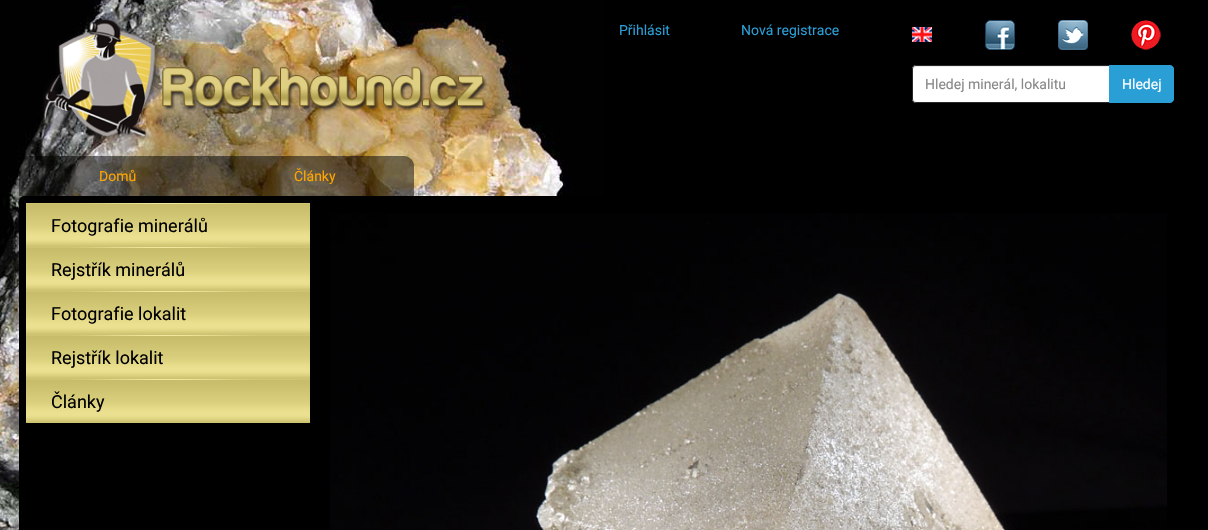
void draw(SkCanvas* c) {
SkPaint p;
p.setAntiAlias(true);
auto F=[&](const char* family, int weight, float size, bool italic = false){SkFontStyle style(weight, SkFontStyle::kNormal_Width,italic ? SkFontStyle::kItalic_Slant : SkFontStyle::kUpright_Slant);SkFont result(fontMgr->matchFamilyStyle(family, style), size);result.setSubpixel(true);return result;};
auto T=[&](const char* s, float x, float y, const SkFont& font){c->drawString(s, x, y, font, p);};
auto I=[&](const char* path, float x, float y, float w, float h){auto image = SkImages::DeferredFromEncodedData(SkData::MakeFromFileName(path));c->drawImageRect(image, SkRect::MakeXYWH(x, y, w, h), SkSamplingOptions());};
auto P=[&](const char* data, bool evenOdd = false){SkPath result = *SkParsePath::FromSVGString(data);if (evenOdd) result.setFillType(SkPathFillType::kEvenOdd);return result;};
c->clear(0xffffffff);
I("1.png",0,0,1208,530);
I("2.png",42,16,446,126);
auto f1 = F("Roboto",400,14);
p.setColor(0xff2a9fd6);
T("Přihlásit",619,35,f1);
T("Nová registrace",741,35,f1);
I("3.png",912,27,20,15);
I("4.png",985,20,30,30);
I("5.png",1058,20,30,30);
I("6.png",1131,20,30,30);
p.setColor(0xffffffff);
c->drawPath(P("M916 65h194v38h-194c-2 0-4-2-4-4v-30c0-2 2-4 4-4z"),p);
p.setColor(0xffececec);
c->drawPath(P("M916 67h193v-1h-193c-2 0-3 2-3 4c0-2 1-3 3-3z"),p);
p.setStroke(true);
p.setStrokeWidth(1);
p.setColor(0xff282828);
c->drawPath(P("M916 65.5h193.5v37h-193.5c-2 0-3.5-1.5-3.5-3.5v-30c0-2 1.5-3.5 3.5-3.5z"),p);
p.setStroke(false);
p.setColor(0xff888888);
T("Hledej minerál, lokalitu",925,89,f1);
p.setColor(0xff2a9fd6);
c->drawPath(P("M1109.5 65.5h60.5c2 0 3.5 1.5 3.5 3.5v30c0 2-1.5 3.5-3.5 3.5h-60.5z"),p);
p.setStroke(true);
c->drawPath(P("M1109.5 65.5h60.5c2 0 3.5 1.5 3.5 3.5v30c0 2-1.5 3.5-3.5 3.5h-60.5z"),p);
p.setStroke(false);
p.setColor(0xffffffff);
T("Hledej",1122,89,f1);
p.setColor(0x80000000);
c->drawPath(P("M29 156h188v40h-198v-30c0-5.5 4.5-10 10-10z"),p);
p.setColor(0xffffa500);
T("Domů",99,181,f1);
p.setColor(0x80000000);
c->drawPath(P("M217 156h187c5.5 0 10 4.5 10 10v30h-197z"),p);
p.setColor(0xffffa500);
T("Články",294,181,f1);
p.setColor(0xff000000);
c->drawRoundRect(SkRect::MakeXYWH(22.5,199.5,1163,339),1.5,1.5,p);
p.setStroke(true);
p.setStrokeWidth(7);
c->drawRoundRect(SkRect::MakeXYWH(22.5,199.5,1163,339),1.5,1.5,p);
I("7.png",26,203,284,44);
auto f2 = F("Roboto",400,18);
p.setStroke(false);
T("Fotografie minerálů",51,232,f2);
I("7.png",26,247,284,44);
T("Rejstřík minerálů",51,276,f2);
I("7.png",26,291,284,44);
T("Fotografie lokalit",51,320,f2);
I("7.png",26,335,284,44);
T("Rejstřík lokalit",51,364,f2);
I("7.png",26,379,284,44);
T("Články",51,408,f2);
I("8.png",330,213,837,317);
}
